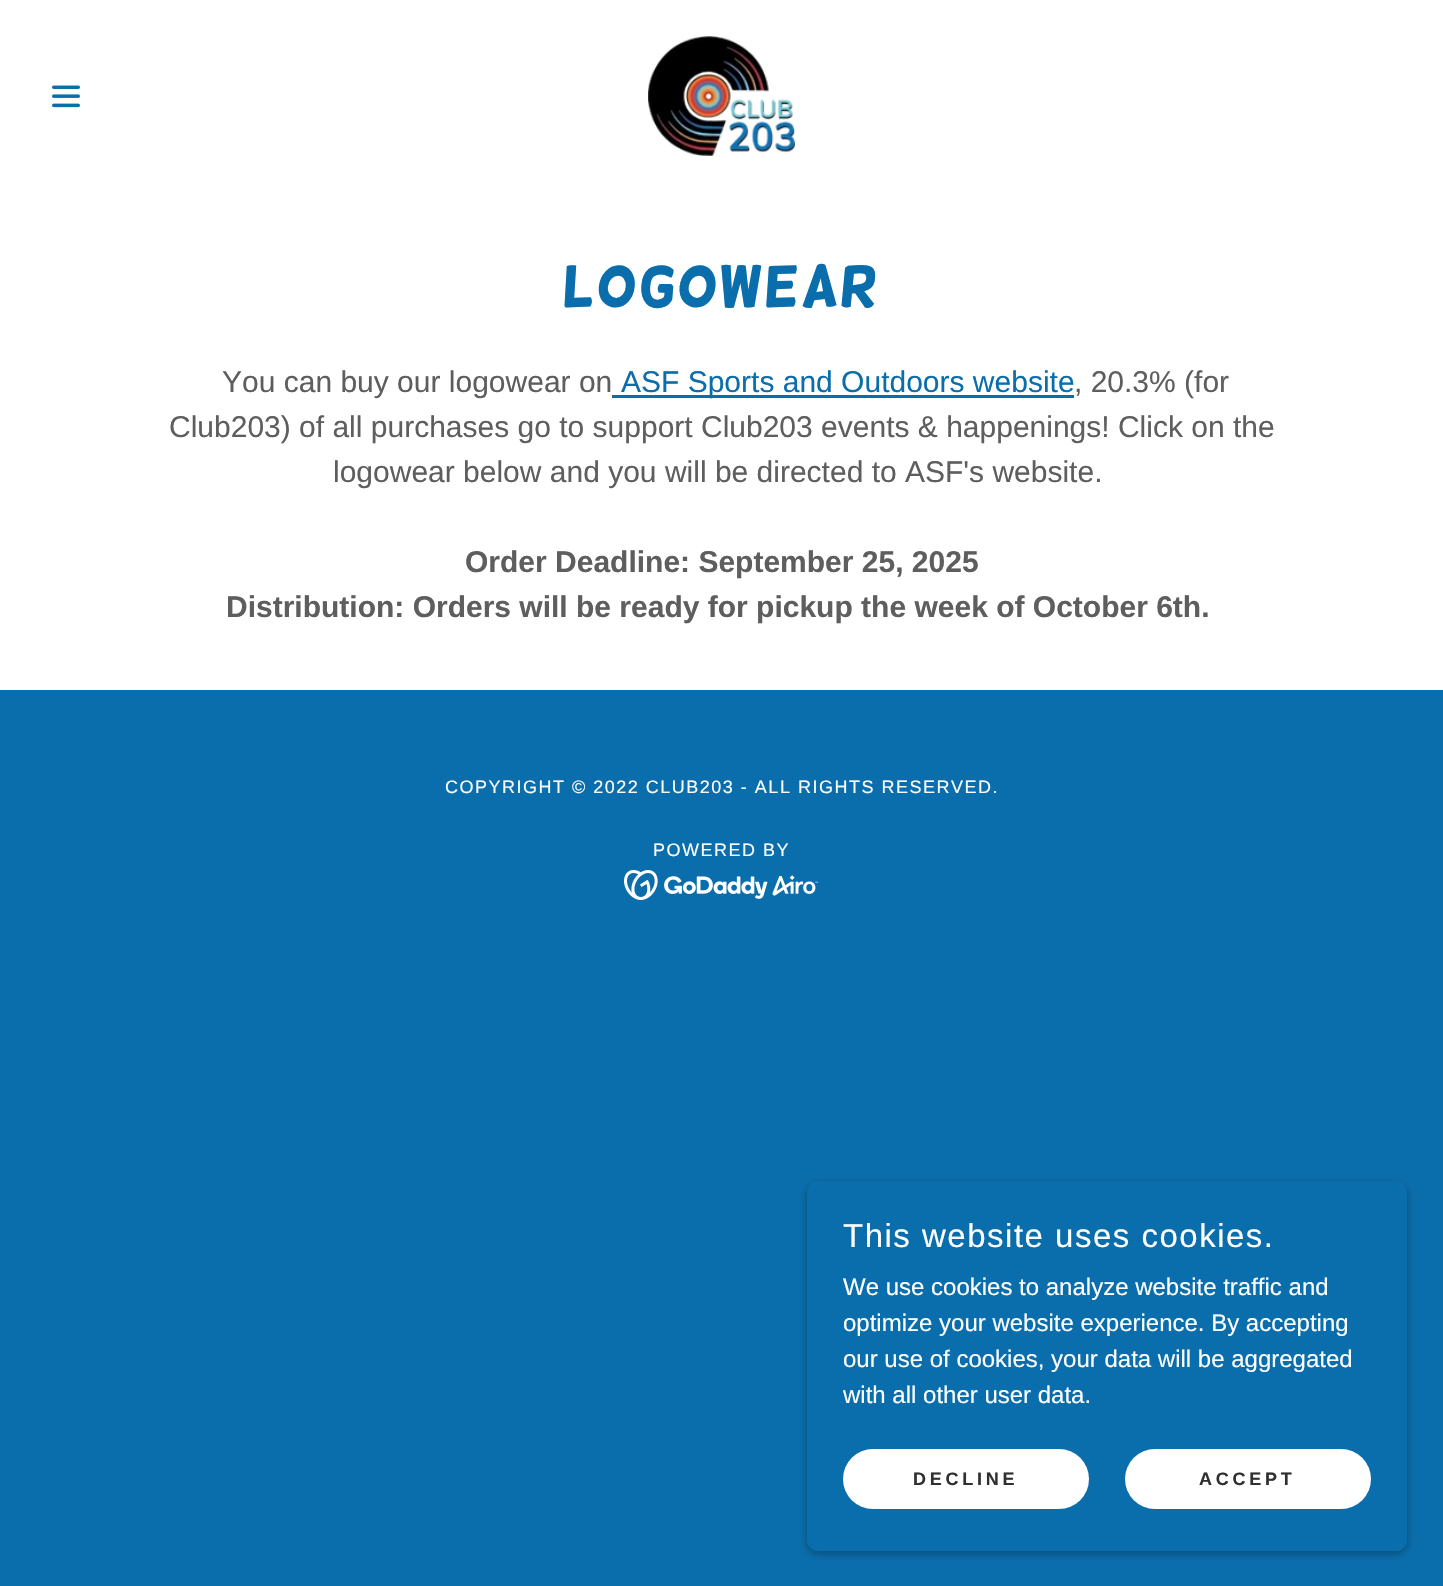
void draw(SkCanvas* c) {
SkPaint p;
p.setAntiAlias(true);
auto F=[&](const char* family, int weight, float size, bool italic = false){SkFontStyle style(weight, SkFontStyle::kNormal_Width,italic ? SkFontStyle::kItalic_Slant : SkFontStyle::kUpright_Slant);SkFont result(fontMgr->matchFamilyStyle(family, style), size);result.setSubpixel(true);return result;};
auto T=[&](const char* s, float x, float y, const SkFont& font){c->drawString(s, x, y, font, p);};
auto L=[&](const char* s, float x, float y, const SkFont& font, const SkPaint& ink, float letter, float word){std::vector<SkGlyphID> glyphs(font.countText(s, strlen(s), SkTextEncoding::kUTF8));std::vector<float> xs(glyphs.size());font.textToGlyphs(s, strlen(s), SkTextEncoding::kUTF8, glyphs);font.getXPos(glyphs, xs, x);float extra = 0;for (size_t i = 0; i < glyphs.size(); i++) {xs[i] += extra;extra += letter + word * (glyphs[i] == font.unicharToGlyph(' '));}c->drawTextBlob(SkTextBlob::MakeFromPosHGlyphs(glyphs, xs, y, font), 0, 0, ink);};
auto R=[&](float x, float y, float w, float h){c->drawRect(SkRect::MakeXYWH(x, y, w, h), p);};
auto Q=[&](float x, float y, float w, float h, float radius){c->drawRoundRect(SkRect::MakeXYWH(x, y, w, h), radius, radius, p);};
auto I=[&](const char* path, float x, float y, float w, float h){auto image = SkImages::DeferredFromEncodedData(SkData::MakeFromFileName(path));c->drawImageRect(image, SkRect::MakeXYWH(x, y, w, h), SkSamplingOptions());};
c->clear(0xff0b6eac);
p.setColor(0xffffffff);
R(0,0,1443,690);
I("1.png",52,85,28,23);
I("2.png",648,36,147,120);
auto f1 = F("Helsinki",400,57);
p.setColor(0xff0b6eac);
L("LOGOWEAR",563,306,f1,p,1.75,0);
auto f2 = F("Liberation Sans",400,30);
p.setColor(0xff5e5e5e);
T("You can buy our logowear on",222,392,f2);
p.setColor(0xff0b6eac);
R(612,395,462,3);
T("ASF Sports and Outdoors website",621,392,f2);
p.setColor(0xff5e5e5e);
T(", 20.3% (for",1074,392,f2);
T("Club203) of all purchases go to support Club203 events & happenings! Click on the",169,437,f2);
T("logowear below and you will be directed to ASF's website.",333,482,f2);
auto f3 = F("Liberation Sans",700,30);
T("Order Deadline: September 25, 2025",465,572,f3);
T("Distribution: Orders will be ready for pickup the week of October 6th.",226,617,f3);
auto f4 = F("Liberation Sans",400,18);
p.setColor(0xffffffff);
L("COPYRIGHT © 2022 CLUB203 - ALL RIGHTS RESERVED.",445,793,f4,p,1.5,0);
L("POWERED BY",653,856,f4,p,1.5,0);
I("3.png",624,870,194,30);
p.setColor(0x4d000000);
p.setMaskFilter(SkMaskFilter::MakeBlur(kNormal_SkBlurStyle, 4.5));
c->drawRoundRect(SkRect::MakeXYWH(807,1184,600,370),11,11,p);
p.setMaskFilter(nullptr);
p.setColor(0xff0b6eac);
Q(807,1181,600,370,11);
auto f5 = F("Liberation Sans",400,33);
p.setColor(0xffffffff);
L("This website uses cookies.",843,1247,f5,p,1.5,0);
auto f6 = F("Liberation Sans",400,24);
T("We use cookies to analyze website traffic and",843,1295,f6);
T("optimize your website experience. By accepting",843,1331,f6);
T("our use of cookies, your data will be aggregated",843,1367,f6);
T("with all other user data.",843,1403,f6);
Q(843,1449,246,60,30);
auto f7 = F("Liberation Sans",700,18);
p.setColor(0xff303030);
L("DECLINE",913,1485,f7,p,3.75,0);
p.setColor(0xffffffff);
Q(1125,1449,246,60,30);
p.setColor(0xff303030);
L("ACCEPT",1199,1485,f7,p,3.75,0);
}
